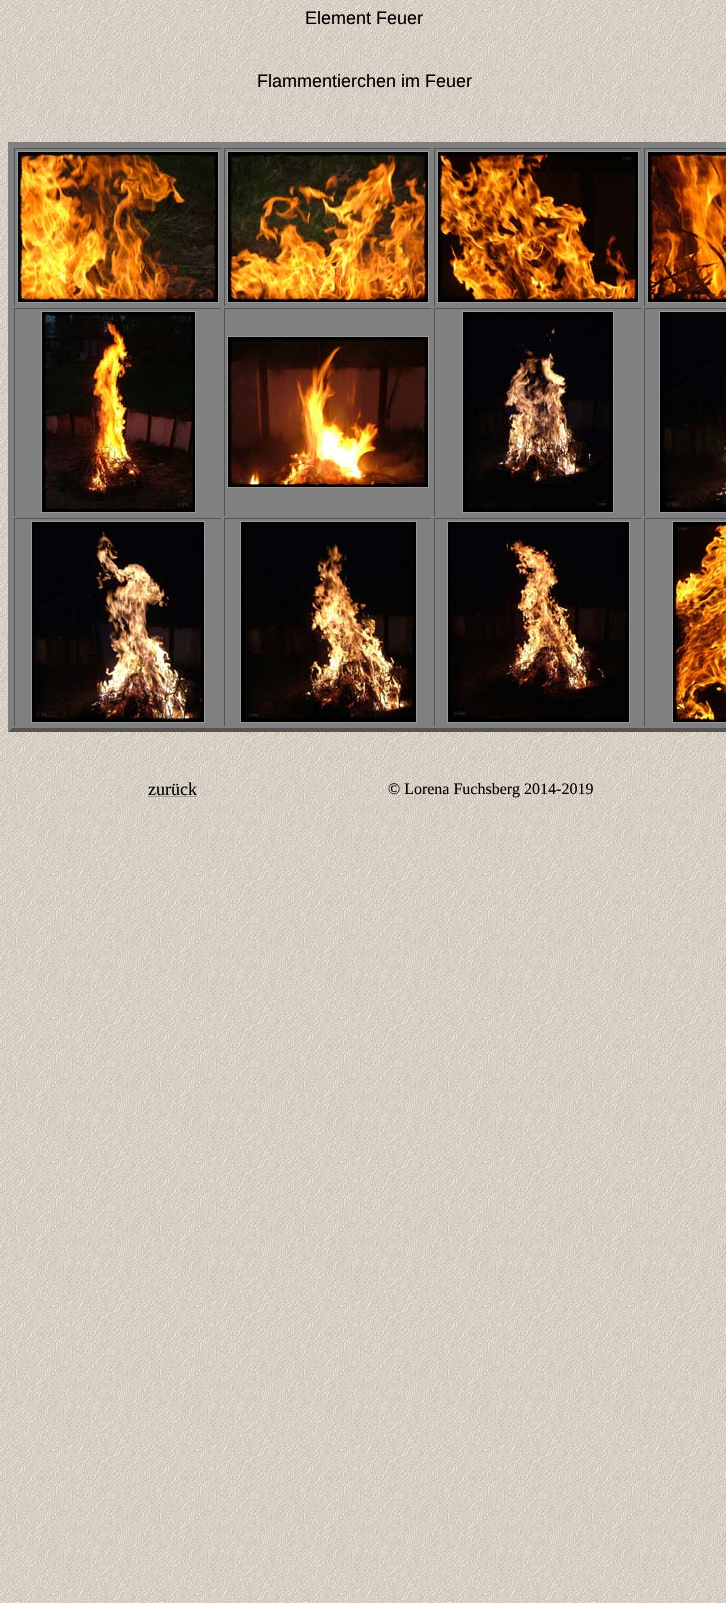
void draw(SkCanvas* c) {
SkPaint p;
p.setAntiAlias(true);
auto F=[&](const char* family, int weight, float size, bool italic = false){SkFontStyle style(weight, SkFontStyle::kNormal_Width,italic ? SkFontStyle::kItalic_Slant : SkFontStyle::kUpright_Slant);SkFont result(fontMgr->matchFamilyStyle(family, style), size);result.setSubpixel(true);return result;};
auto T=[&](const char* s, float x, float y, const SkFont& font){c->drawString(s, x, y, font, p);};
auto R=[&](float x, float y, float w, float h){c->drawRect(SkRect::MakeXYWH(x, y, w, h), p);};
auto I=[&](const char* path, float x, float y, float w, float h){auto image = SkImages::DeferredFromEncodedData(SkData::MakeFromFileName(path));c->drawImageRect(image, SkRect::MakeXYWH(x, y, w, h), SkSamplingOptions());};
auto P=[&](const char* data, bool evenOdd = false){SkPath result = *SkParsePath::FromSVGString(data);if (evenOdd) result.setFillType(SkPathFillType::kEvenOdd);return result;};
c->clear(0xffffffff);
I("1.png",0,0,726,1603);
auto f1 = F("Liberation Sans",400,18);
p.setColor(0xff000000);
T("Element Feuer",305,24,f1);
T("Flammentierchen im Feuer",257,87,f1);
p.setColor(0xff808080);
R(8,142,718,590);
p.setColor(0xff555555);
c->drawPath(P("M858 732h-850l4-4h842z"),p);
p.setColor(0xff808080);
c->drawPath(P("M8 732v-590l4 4v582z"),p);
p.setColor(0xff555555);
R(14,148,208,1);
p.setColor(0xff808080);
R(221,148,1,1);
p.setColor(0xff555555);
R(14,148,1,158);
p.setStroke(true);
p.setStrokeWidth(1);
p.setColor(0xff999999);
c->drawRect(SkRect::MakeXYWH(17.5,151.5,201,151),p);
I("2.png",18,152,200,150);
p.setStroke(false);
p.setColor(0xff555555);
R(224,148,208,1);
p.setColor(0xff808080);
R(431,148,1,1);
p.setColor(0xff555555);
R(224,148,1,158);
p.setStroke(true);
p.setColor(0xff999999);
c->drawRect(SkRect::MakeXYWH(227.5,151.5,201,151),p);
I("3.png",228,152,200,150);
p.setStroke(false);
p.setColor(0xff555555);
R(434,148,208,1);
p.setColor(0xff808080);
R(641,148,1,1);
p.setColor(0xff555555);
R(434,148,1,158);
p.setStroke(true);
p.setColor(0xff999999);
c->drawRect(SkRect::MakeXYWH(437.5,151.5,201,151),p);
I("4.png",438,152,200,150);
p.setStroke(false);
p.setColor(0xff555555);
R(644,148,82,1);
R(644,148,1,158);
p.setStroke(true);
p.setColor(0xff999999);
c->drawRect(SkRect::MakeXYWH(647.5,151.5,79,151),p);
I("5.png",648,152,78,150);
p.setStroke(false);
p.setColor(0xff555555);
R(14,308,208,1);
p.setColor(0xff808080);
R(221,308,1,1);
p.setColor(0xff555555);
R(14,308,1,208);
p.setStroke(true);
p.setColor(0xff999999);
c->drawRect(SkRect::MakeXYWH(41.5,311.5,154,201),p);
I("6.png",42,312,153,200);
p.setStroke(false);
p.setColor(0xff555555);
R(224,308,208,1);
p.setColor(0xff808080);
R(431,308,1,1);
p.setColor(0xff555555);
R(224,308,1,208);
p.setStroke(true);
p.setColor(0xff999999);
c->drawRect(SkRect::MakeXYWH(227.5,336.5,201,151),p);
I("7.png",228,337,200,150);
p.setStroke(false);
p.setColor(0xff555555);
R(434,308,208,1);
p.setColor(0xff808080);
R(641,308,1,1);
p.setColor(0xff555555);
R(434,308,1,208);
p.setStroke(true);
p.setColor(0xff999999);
c->drawRect(SkRect::MakeXYWH(462.5,311.5,151,201),p);
I("8.png",463,312,150,200);
p.setStroke(false);
p.setColor(0xff555555);
R(644,308,82,1);
R(644,308,1,208);
p.setStroke(true);
p.setColor(0xff999999);
c->drawRect(SkRect::MakeXYWH(659.5,311.5,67,201),p);
I("9.png",660,312,66,200);
p.setStroke(false);
p.setColor(0xff555555);
R(14,518,208,1);
p.setColor(0xff808080);
R(221,518,1,1);
p.setColor(0xff555555);
R(14,518,1,208);
p.setStroke(true);
p.setColor(0xff999999);
c->drawRect(SkRect::MakeXYWH(31.5,521.5,173,201),p);
I("10.png",32,522,172,200);
p.setStroke(false);
p.setColor(0xff555555);
R(224,518,208,1);
p.setColor(0xff808080);
R(431,518,1,1);
p.setColor(0xff555555);
R(224,518,1,208);
p.setStroke(true);
p.setColor(0xff999999);
c->drawRect(SkRect::MakeXYWH(240.5,521.5,176,201),p);
I("11.png",241,522,175,200);
p.setStroke(false);
p.setColor(0xff555555);
R(434,518,208,1);
p.setColor(0xff808080);
R(641,518,1,1);
p.setColor(0xff555555);
R(434,518,1,208);
p.setStroke(true);
p.setColor(0xff999999);
c->drawRect(SkRect::MakeXYWH(447.5,521.5,182,201),p);
I("12.png",448,522,181,200);
p.setStroke(false);
p.setColor(0xff555555);
R(644,518,82,1);
R(644,518,1,208);
p.setStroke(true);
p.setColor(0xff999999);
c->drawRect(SkRect::MakeXYWH(672.5,521.5,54,201),p);
I("13.png",673,522,53,200);
auto f2 = F("Liberation Serif",400,18);
p.setStroke(false);
p.setColor(0xff000000);
T("zurück",148,795,f2);
p.setColor(0xff999999);
R(148,796,49,1);
auto f3 = F("Liberation Serif",400,16);
p.setColor(0xff000000);
T("© Lorena Fuchsberg 2014-2019",388,794,f3);
}
